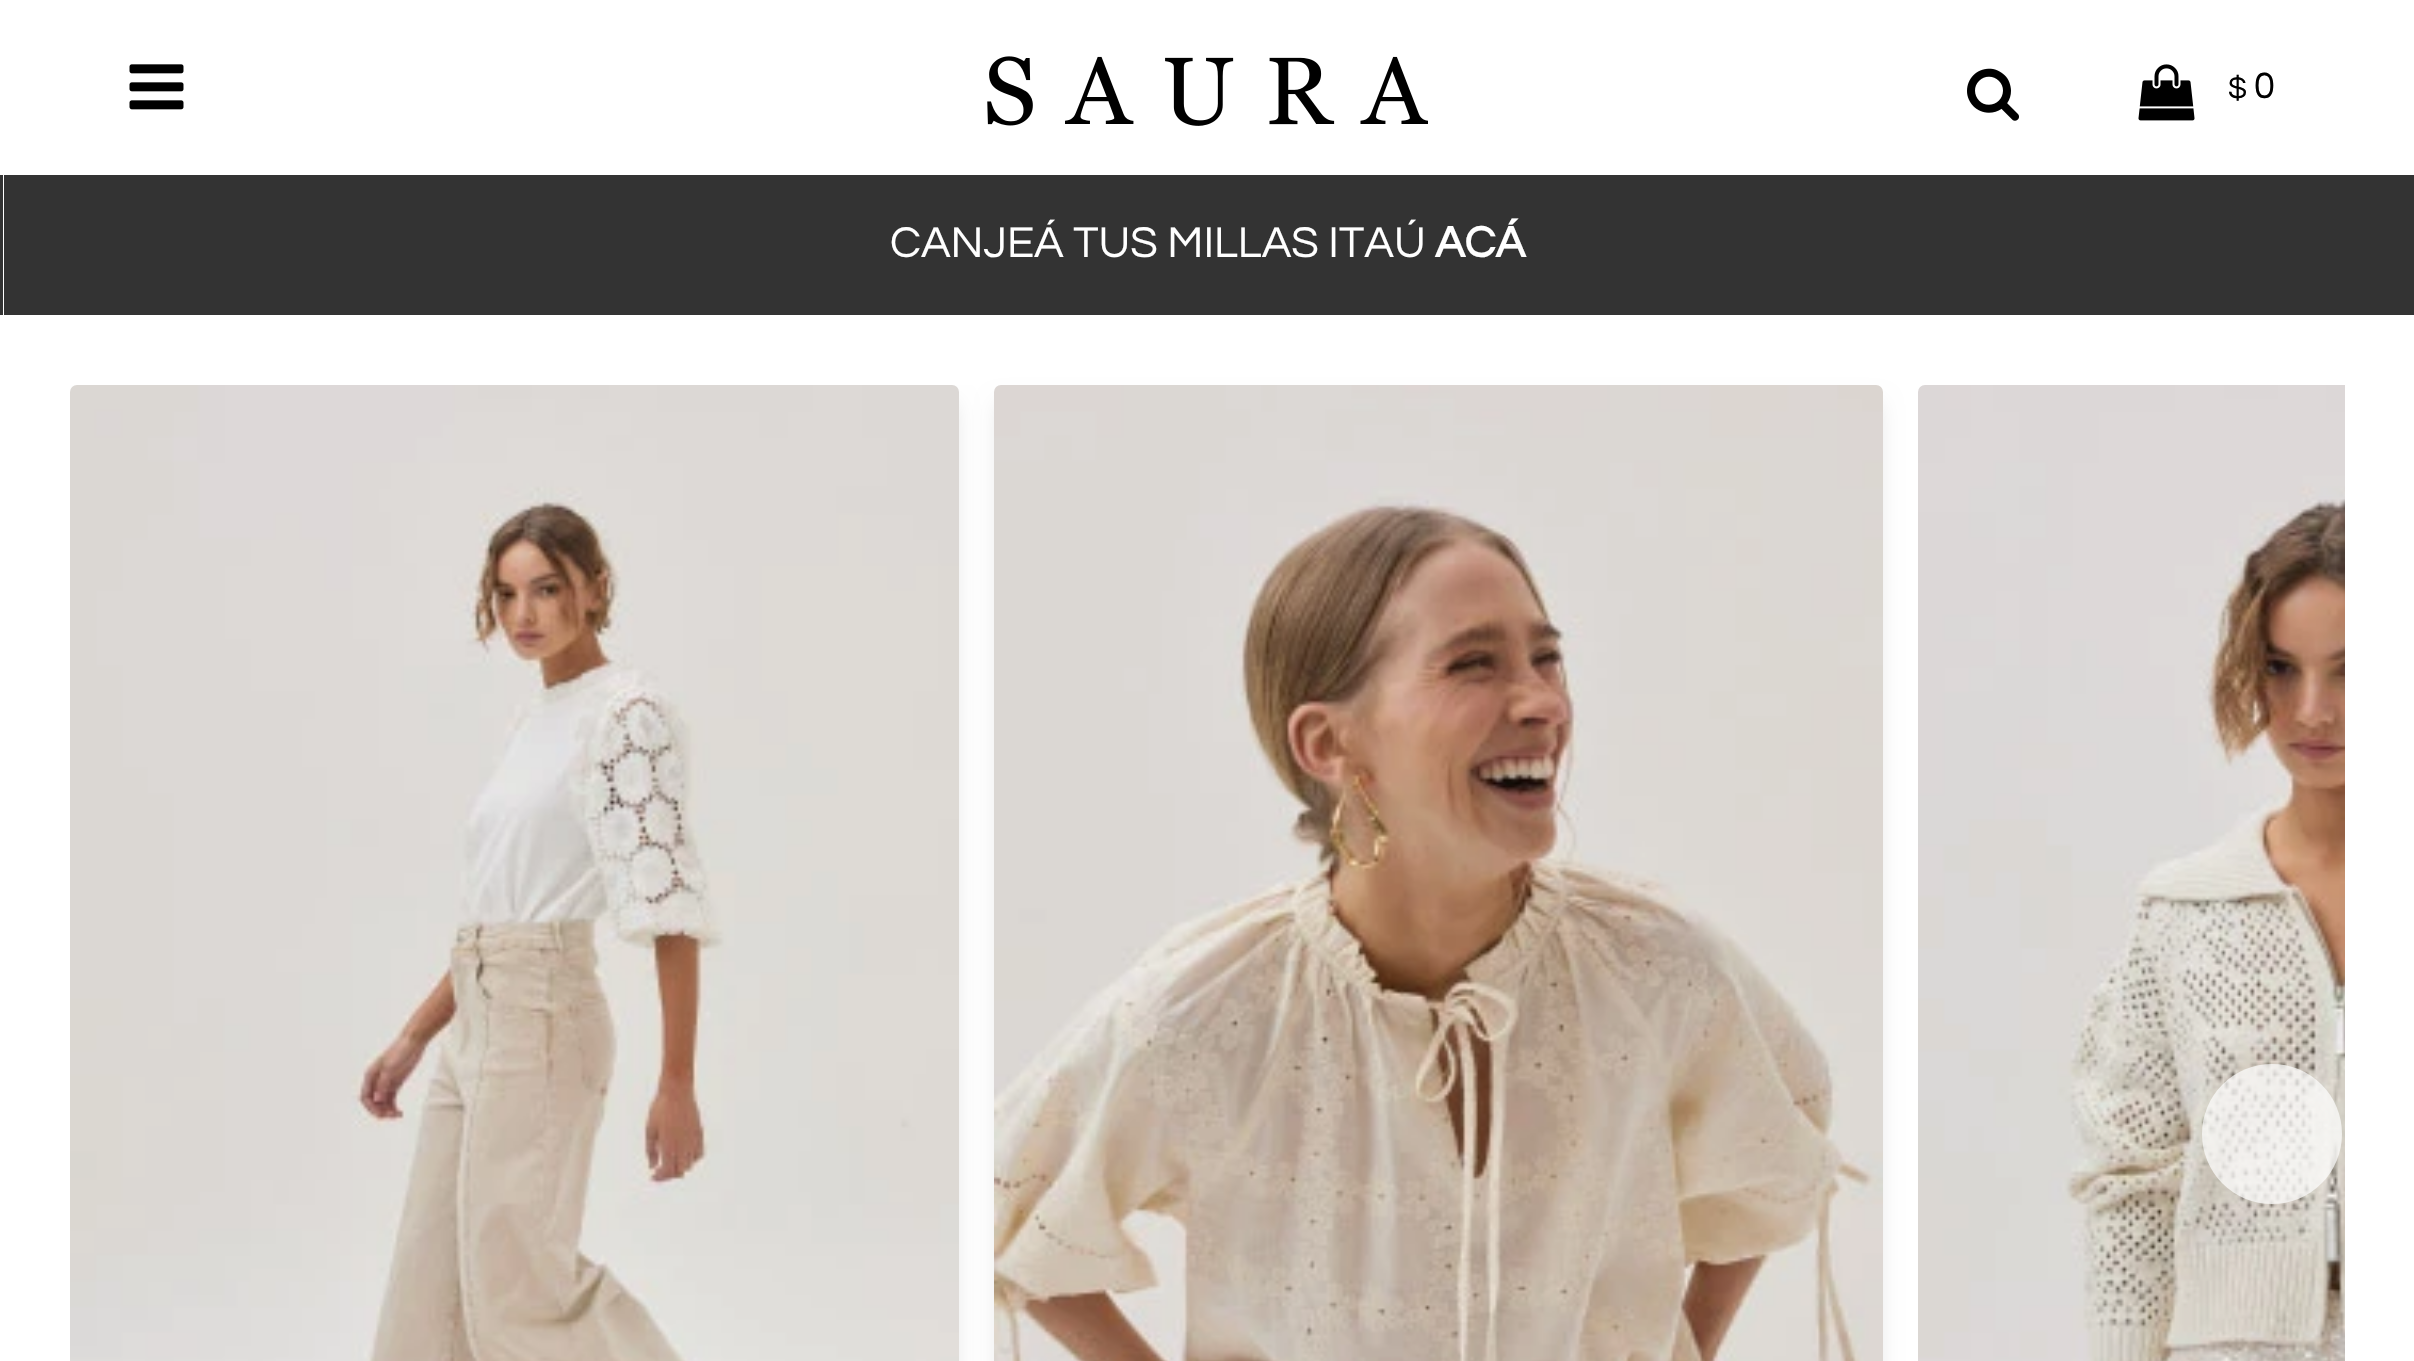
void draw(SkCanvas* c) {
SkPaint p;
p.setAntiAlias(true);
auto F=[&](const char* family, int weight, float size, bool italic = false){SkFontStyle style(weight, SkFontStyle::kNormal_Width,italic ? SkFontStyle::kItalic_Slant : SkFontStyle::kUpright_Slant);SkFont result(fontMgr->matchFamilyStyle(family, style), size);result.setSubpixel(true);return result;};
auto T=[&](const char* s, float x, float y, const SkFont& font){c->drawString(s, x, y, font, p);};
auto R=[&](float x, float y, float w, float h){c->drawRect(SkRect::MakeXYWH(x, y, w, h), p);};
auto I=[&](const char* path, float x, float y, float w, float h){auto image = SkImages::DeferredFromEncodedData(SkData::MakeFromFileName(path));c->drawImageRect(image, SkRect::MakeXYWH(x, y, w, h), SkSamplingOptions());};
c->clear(0xffffffff);
I("1.png",129,64,55,46);
I("2.png",987,56,441,70);
I("3.png",1967,68,52,53);
I("4.png",2138,64,57,57);
auto f1 = F("Questrial",400,31);
p.setColor(0xff000000);
T("$",2228,98,f1);
auto f2 = F("Questrial",400,38);
T("0",2254,98,f2);
p.setColor(0xff333333);
R(0,175,3,140);
R(4,175,2410,140);
auto f3 = F("Questrial",400,44.75);
p.setColor(0xffffffff);
T("CANJEÁ TUS MILLAS ITAÚ",890,257,f3);
auto f4 = F("Questrial",700,44.75);
T("ACÁ",1435,257,f4);
c->save();
c->clipRect(SkRect::MakeXYWH(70,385,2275,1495));
p.setColor(0x1a000000);
p.setMaskFilter(SkMaskFilter::MakeBlur(kNormal_SkBlurStyle, 10.5));
c->drawRoundRect(SkRect::MakeXYWH(74,403,882,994),4,4,p);
p.setMaskFilter(nullptr);
c->restore();
I("5.png",70,385,889,976);
p.setMaskFilter(SkMaskFilter::MakeBlur(kNormal_SkBlurStyle, 10.5));
c->drawRoundRect(SkRect::MakeXYWH(998,403,882,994),4,4,p);
p.setMaskFilter(nullptr);
I("6.png",994,385,889,976);
I("7.png",1918,385,427,976);
p.setColor(0xb3ffffff);
c->drawCircle(2272,1134,70,p);
}
